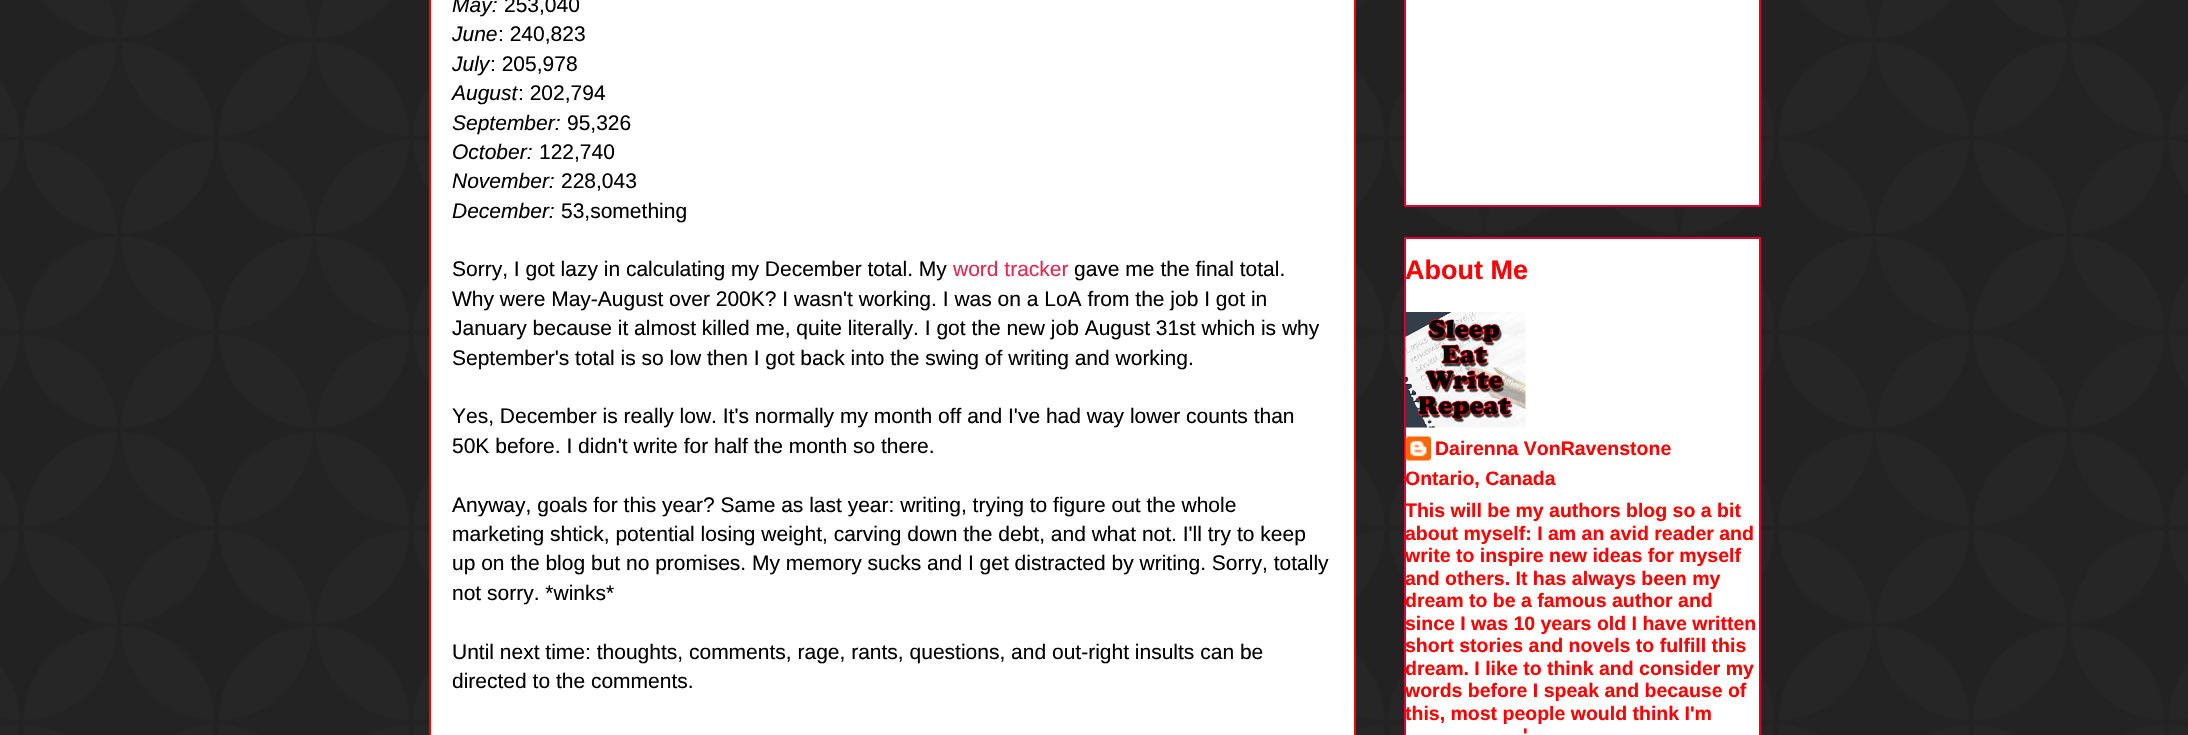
void draw(SkCanvas* c) {
SkPaint p;
p.setAntiAlias(true);
auto F=[&](const char* family, int weight, float size, bool italic = false){SkFontStyle style(weight, SkFontStyle::kNormal_Width,italic ? SkFontStyle::kItalic_Slant : SkFontStyle::kUpright_Slant);SkFont result(fontMgr->matchFamilyStyle(family, style), size);result.setSubpixel(true);return result;};
auto T=[&](const char* s, float x, float y, const SkFont& font){c->drawString(s, x, y, font, p);};
auto I=[&](const char* path, float x, float y, float w, float h){auto image = SkImages::DeferredFromEncodedData(SkData::MakeFromFileName(path));c->drawImageRect(image, SkRect::MakeXYWH(x, y, w, h), SkSamplingOptions());};
c->clear(0xff282828);
I("1.png",0,0,2188,735);
p.setColor(0xffffffff);
c->drawRect(SkRect::MakeXYWH(430,-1,925,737),p);
p.setStroke(true);
p.setStrokeWidth(2);
p.setColor(0xffff0000);
c->drawRect(SkRect::MakeXYWH(430,-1,925,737),p);
auto f1 = F("Liberation Sans",400,21,true);
p.setStroke(false);
p.setColor(0xff000000);
T("May:",452,12,f1);
auto f2 = F("Liberation Sans",400,21);
T("253,040",504,12,f2);
T("June",452,41,f1);
T(": 240,823",498,41,f2);
T("July",452,71,f1);
T(": 205,978",490,71,f2);
T("August",452,100,f1);
T(": 202,794",518,100,f2);
T("September:",452,130,f1);
T("95,326",567,130,f2);
T("October:",452,159,f1);
T("122,740",539,159,f2);
T("November:",452,188,f1);
T("228,043",561,188,f2);
T("December:",452,218,f1);
T("53,something",561,218,f2);
T("Sorry, I got lazy in calculating my December total. My",452,276,f2);
p.setColor(0xffe1284d);
T("word tracker",953,276,f2);
p.setColor(0xff000000);
T("gave me the final total.",1074,276,f2);
T("Why were May-August over 200K? I wasn't working. I was on a LoA from the job I got in",452,306,f2);
T("January because it almost killed me, quite literally. I got the new job August 31st which is why",452,335,f2);
T("September's total is so low then I got back into the swing of writing and working.",452,365,f2);
T("Yes, December is really low. It's normally my month off and I've had way lower counts than",452,423,f2);
T("50K before. I didn't write for half the month so there.",452,453,f2);
T("Anyway, goals for this year? Same as last year: writing, trying to figure out the whole",452,512,f2);
T("marketing shtick, potential losing weight, carving down the debt, and what not. I'll try to keep",452,541,f2);
T("up on the blog but no promises. My memory sucks and I get distracted by writing. Sorry, totally",452,570,f2);
T("not sorry. *winks*",452,600,f2);
T("Until next time: thoughts, comments, rage, rants, questions, and out-right insults can be",452,659,f2);
T("directed to the comments.",452,688,f2);
p.setColor(0xffffffff);
c->drawRect(SkRect::MakeXYWH(1405,-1,355,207),p);
p.setStroke(true);
p.setColor(0xffe1002d);
c->drawRect(SkRect::MakeXYWH(1405,-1,355,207),p);
p.setStroke(false);
p.setColor(0xffffffff);
c->drawRect(SkRect::MakeXYWH(1405,238,355,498),p);
p.setStroke(true);
p.setColor(0xffe1002d);
c->drawRect(SkRect::MakeXYWH(1405,238,355,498),p);
auto f3 = F("Liberation Sans",700,27);
p.setStroke(false);
p.setColor(0xffff0000);
T("About Me",1405,279,f3);
I("2.png",1405,312,121,116);
I("3.png",1405,436,26,25);
auto f4 = F("Liberation Sans",700,19.5);
T("Dairenna VonRavenstone",1435,455,f4);
T("Ontario, Canada",1405,485,f4);
T("This will be my authors blog so a bit",1405,517,f4);
T("about myself: I am an avid reader and",1405,540,f4);
T("write to inspire new ideas for myself",1405,562,f4);
T("and others. It has always been my",1405,585,f4);
T("dream to be a famous author and",1405,607,f4);
T("since I was 10 years old I have written",1405,630,f4);
T("short stories and novels to fulfill this",1405,652,f4);
T("dream. I like to think and consider my",1405,675,f4);
T("words before I speak and because of",1405,697,f4);
T("this, most people would think I'm",1405,720,f4);
T("'",1523,742,f4);
}
